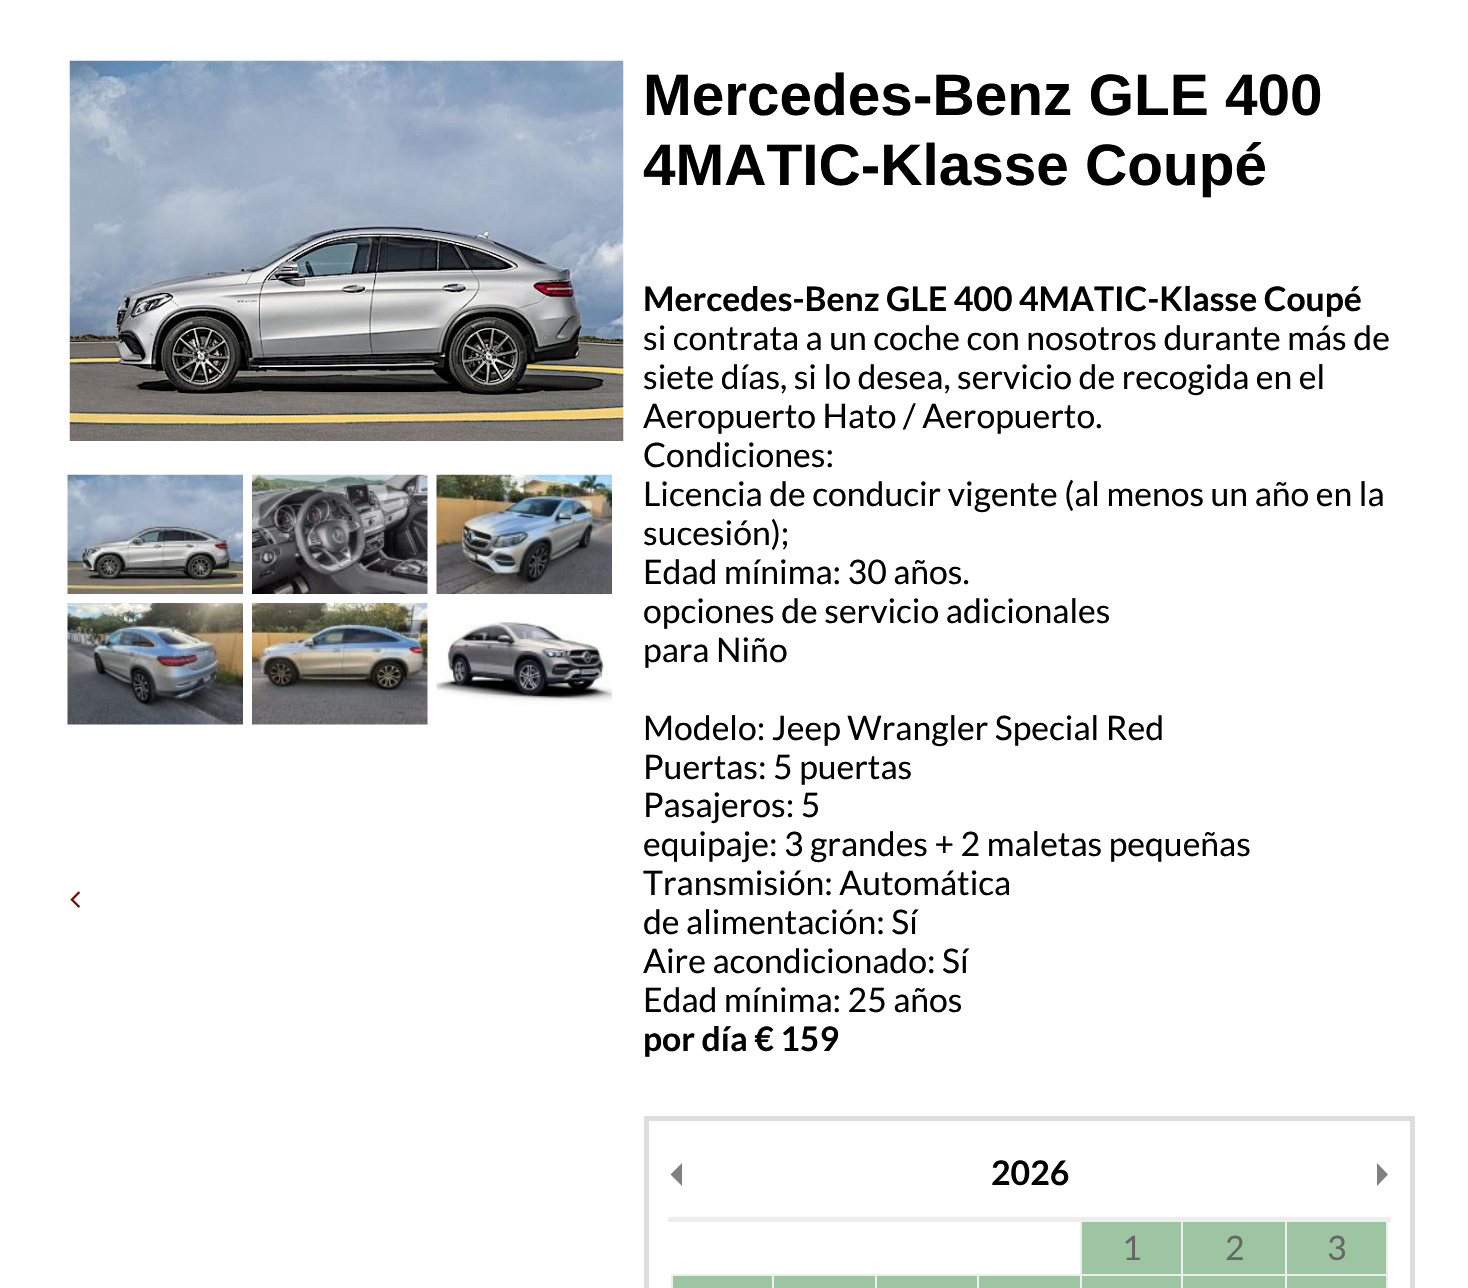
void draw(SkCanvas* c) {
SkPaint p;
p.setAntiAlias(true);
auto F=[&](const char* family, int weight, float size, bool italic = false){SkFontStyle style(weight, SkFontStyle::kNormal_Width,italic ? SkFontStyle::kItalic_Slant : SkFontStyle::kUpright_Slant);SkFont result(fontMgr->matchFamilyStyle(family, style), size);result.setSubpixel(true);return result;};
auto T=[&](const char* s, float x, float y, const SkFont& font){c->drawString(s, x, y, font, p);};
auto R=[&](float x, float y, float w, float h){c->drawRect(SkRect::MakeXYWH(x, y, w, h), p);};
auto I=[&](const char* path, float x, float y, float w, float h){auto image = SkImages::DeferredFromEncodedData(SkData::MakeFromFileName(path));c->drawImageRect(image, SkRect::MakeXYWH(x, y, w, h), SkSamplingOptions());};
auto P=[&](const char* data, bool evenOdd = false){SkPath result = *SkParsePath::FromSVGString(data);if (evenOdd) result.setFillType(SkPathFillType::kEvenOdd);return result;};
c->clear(0xffffffff);
I("1.png",69,60,555,381);
I("2.png",67,474,176,120);
I("3.png",252,474,176,120);
I("4.png",436,474,176,120);
I("5.png",67,603,176,122);
I("6.png",252,603,176,122);
I("7.png",436,620,176,85);
I("8.png",70,891,10,17);
auto f1 = F("Liberation Sans",700,58.5);
p.setColor(0xff000000);
T("Mercedes-Benz GLE 400",643,115,f1);
T("4MATIC-Klasse Coupé",643,185,f1);
auto f2 = F("Lato",700,33.75);
T("Mercedes-Benz GLE 400 4MATIC-Klasse Coupé",643,311,f2);
auto f3 = F("Lato",400,33.75);
T("si contrata a un coche con nosotros durante más de",643,350,f3);
T("siete días, si lo desea, servicio de recogida en el",643,389,f3);
T("Aeropuerto Hato / Aeropuerto.",643,428,f3);
T("Condiciones:",643,467,f3);
T("Licencia de conducir vigente (al menos un año en la",643,506,f3);
T("sucesión);",643,545,f3);
T("Edad mínima: 30 años.",643,584,f3);
T("opciones de servicio adicionales",643,623,f3);
T("para Niño",643,662,f3);
T("Modelo: Jeep Wrangler Special Red",643,740,f3);
T("Puertas: 5 puertas",643,779,f3);
T("Pasajeros: 5",643,817,f3);
T("equipaje: 3 grandes + 2 maletas pequeñas",643,856,f3);
T("Transmisión: Automática",643,895,f3);
T("de alimentación: Sí",643,934,f3);
T("Aire acondicionado: Sí",643,973,f3);
T("Edad mínima: 25 años",643,1012,f3);
T("por día € 159",643,1051,f2);
p.setStroke(true);
p.setStrokeWidth(5);
p.setColor(0xffdddddd);
c->drawRect(SkRect::MakeXYWH(646.5,1118.5,766,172),p);
p.setStroke(false);
p.setColor(0xff808080);
c->drawPath(P("M682 1163v23l-11.5-11.5z"),p);
p.setColor(0xff000000);
T("2026",991,1185,f2);
p.setColor(0xff808080);
c->drawPath(P("M1377 1186v-23l11 11.5z"),p);
p.setColor(0xffeeeeee);
R(1285,1274,103,2);
R(1386,1217,2,71);
R(1285,1274,2,14);
R(1181,1274,106,2);
p.setColor(0xff9ec5a2);
R(1082,1276,203,12);
p.setColor(0xffeeeeee);
R(1181,1274,2,14);
R(1080,1274,104,2);
R(1080,1274,2,14);
R(977,1274,105,2);
R(1080,1217,2,59);
p.setColor(0xff9ec5a2);
R(1082,1222,203,52);
p.setColor(0xffeeeeee);
R(1181,1217,2,59);
R(1285,1217,2,59);
R(668,1217,723,5);
p.setColor(0xff9ec5a2);
R(673,1276,99,12);
p.setColor(0xffeeeeee);
R(977,1274,2,14);
R(875,1274,104,2);
R(875,1274,2,14);
R(772,1274,106,2);
R(772,1274,2,14);
R(671,1274,103,2);
R(671,1274,2,14);
p.setColor(0xff9ec5a2);
R(774,1276,101,12);
R(877,1276,100,12);
R(979,1276,101,12);
R(1287,1276,99,12);
p.setColor(0xff666666);
T("1",1122,1260,f3);
T("2",1225,1260,f3);
p.setColor(0xff9ec5a2);
R(1287,1222,99,52);
p.setColor(0xff666666);
T("3",1327,1260,f3);
}
